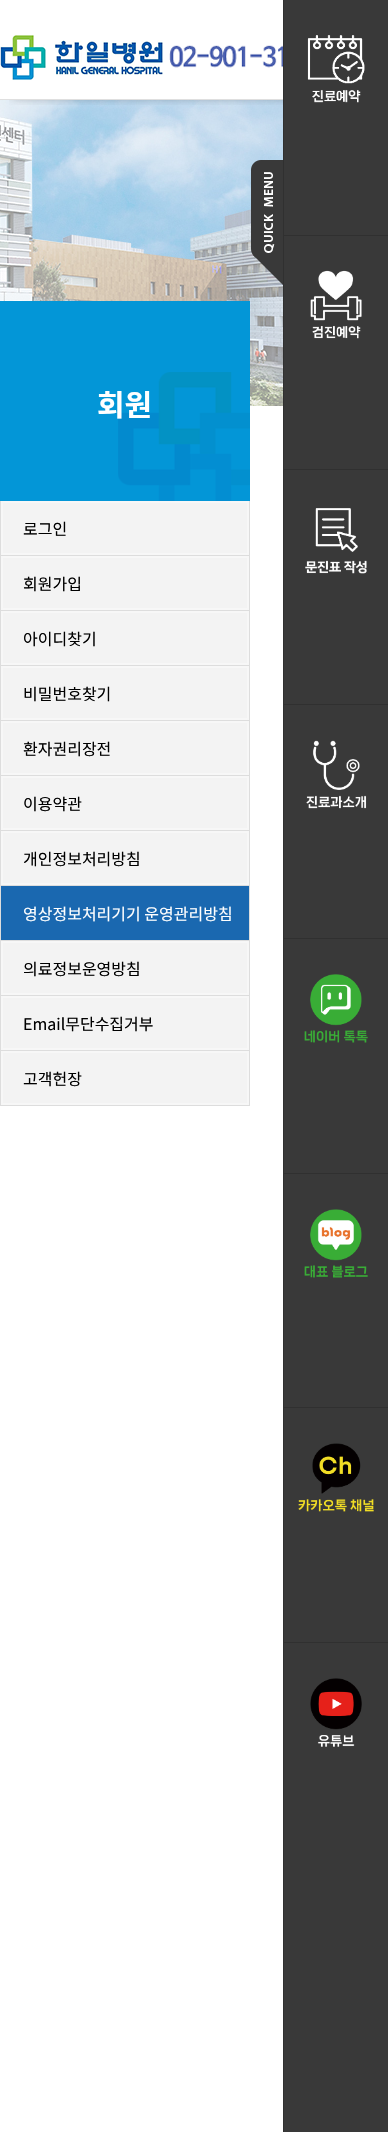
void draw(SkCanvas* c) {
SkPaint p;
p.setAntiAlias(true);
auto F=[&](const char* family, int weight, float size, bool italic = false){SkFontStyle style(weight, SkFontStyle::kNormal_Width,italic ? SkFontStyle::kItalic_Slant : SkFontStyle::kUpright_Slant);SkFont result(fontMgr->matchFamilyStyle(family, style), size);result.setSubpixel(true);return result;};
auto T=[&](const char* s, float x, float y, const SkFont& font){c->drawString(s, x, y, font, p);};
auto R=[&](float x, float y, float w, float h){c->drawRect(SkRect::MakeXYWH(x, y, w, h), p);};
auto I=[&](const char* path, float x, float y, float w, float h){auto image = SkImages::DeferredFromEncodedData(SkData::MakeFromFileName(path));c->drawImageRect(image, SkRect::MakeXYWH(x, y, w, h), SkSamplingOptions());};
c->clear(0xffffffff);
I("11.png",0,100,283,306);
c->save();
c->clipRect(SkRect::MakeXYWH(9,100,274,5));
p.setColor(0xbf000000);
p.setMaskFilter(SkMaskFilter::MakeBlur(kNormal_SkBlurStyle, 5.5));
c->drawRect(SkRect::MakeXYWH(13,45,362,49),p);
p.setMaskFilter(nullptr);
c->restore();
p.setColor(0xff393939);
R(284,0,104,2132);
p.setColor(0xff303030);
R(283,0,1,2132);
I("1.png",251,160,32,125);
I("2.png",307,35,58,68);
R(284,235,104,1);
I("3.png",310,270,52,69);
R(284,469,104,1);
I("4.png",305,508,62,66);
R(284,704,104,1);
I("5.png",306,740,61,69);
R(284,938,104,1);
I("6.png",304,974,64,69);
R(284,1173,104,1);
I("7.png",304,1209,64,69);
R(284,1407,104,1);
I("8.png",298,1443,76,69);
R(284,1642,104,1);
I("9.png",310,1678,52,69);
p.setColor(0xffdfdfdf);
R(0,99,283,1);
I("10.png",0,35,283,45);
p.setColor(0xff0396d7);
R(0,301,250,200);
I("12.png",118,372,132,129);
auto f1 = F("Noto Sans KR",700,30);
p.setColor(0xffffffff);
T("회원",97,416,f1);
p.setColor(0xffdddddd);
R(249,501,1,605);
R(0,555,250,1);
R(0,501,1,55);
p.setColor(0xfff3f3f3);
c->drawRect(SkRect::MakeXYWH(2,502,246,52),p);
p.setStroke(true);
p.setStrokeWidth(2);
p.setColor(0xfff7f7f7);
c->drawRect(SkRect::MakeXYWH(2,502,246,52),p);
auto f2 = F("Noto Sans KR",400,16);
p.setStroke(false);
p.setColor(0xff000000);
T("로그인",23,535,f2);
p.setColor(0xffdddddd);
R(0,610,250,1);
R(0,556,1,55);
p.setColor(0xfff3f3f3);
c->drawRect(SkRect::MakeXYWH(2,557,246,52),p);
p.setStroke(true);
p.setColor(0xfff7f7f7);
c->drawRect(SkRect::MakeXYWH(2,557,246,52),p);
p.setStroke(false);
p.setColor(0xff000000);
T("회원가입",23,590,f2);
p.setColor(0xffdddddd);
R(0,665,250,1);
R(0,611,1,55);
p.setColor(0xfff3f3f3);
c->drawRect(SkRect::MakeXYWH(2,612,246,52),p);
p.setStroke(true);
p.setColor(0xfff7f7f7);
c->drawRect(SkRect::MakeXYWH(2,612,246,52),p);
p.setStroke(false);
p.setColor(0xff000000);
T("아이디찾기",23,645,f2);
p.setColor(0xffdddddd);
R(0,720,250,1);
R(0,666,1,55);
p.setColor(0xfff3f3f3);
c->drawRect(SkRect::MakeXYWH(2,667,246,52),p);
p.setStroke(true);
p.setColor(0xfff7f7f7);
c->drawRect(SkRect::MakeXYWH(2,667,246,52),p);
p.setStroke(false);
p.setColor(0xff000000);
T("비밀번호찾기",23,700,f2);
p.setColor(0xffdddddd);
R(0,775,250,1);
R(0,721,1,55);
p.setColor(0xfff3f3f3);
c->drawRect(SkRect::MakeXYWH(2,722,246,52),p);
p.setStroke(true);
p.setColor(0xfff7f7f7);
c->drawRect(SkRect::MakeXYWH(2,722,246,52),p);
p.setStroke(false);
p.setColor(0xff000000);
T("환자권리장전",23,755,f2);
p.setColor(0xffdddddd);
R(0,830,250,1);
R(0,776,1,55);
p.setColor(0xfff3f3f3);
c->drawRect(SkRect::MakeXYWH(2,777,246,52),p);
p.setStroke(true);
p.setColor(0xfff7f7f7);
c->drawRect(SkRect::MakeXYWH(2,777,246,52),p);
p.setStroke(false);
p.setColor(0xff000000);
T("이용약관",23,810,f2);
p.setColor(0xffdddddd);
R(0,885,250,1);
R(0,831,1,55);
p.setColor(0xfff3f3f3);
c->drawRect(SkRect::MakeXYWH(2,832,246,52),p);
p.setStroke(true);
p.setColor(0xfff7f7f7);
c->drawRect(SkRect::MakeXYWH(2,832,246,52),p);
p.setStroke(false);
p.setColor(0xff000000);
T("개인정보처리방침",23,865,f2);
p.setColor(0xffdddddd);
R(0,940,250,1);
R(0,886,1,55);
p.setColor(0xff1a68b0);
R(1,886,248,54);
p.setColor(0xffffffff);
T("영상정보처리기기 운영관리방침",23,920,f2);
p.setColor(0xffdddddd);
R(0,995,250,1);
R(0,941,1,55);
p.setColor(0xfff3f3f3);
c->drawRect(SkRect::MakeXYWH(2,942,246,52),p);
p.setStroke(true);
p.setColor(0xfff7f7f7);
c->drawRect(SkRect::MakeXYWH(2,942,246,52),p);
p.setStroke(false);
p.setColor(0xff000000);
T("의료정보운영방침",23,975,f2);
p.setColor(0xffdddddd);
R(0,1050,250,1);
R(0,996,1,55);
p.setColor(0xfff3f3f3);
c->drawRect(SkRect::MakeXYWH(2,997,246,52),p);
p.setStroke(true);
p.setColor(0xfff7f7f7);
c->drawRect(SkRect::MakeXYWH(2,997,246,52),p);
p.setStroke(false);
p.setColor(0xff000000);
T("Email무단수집거부",23,1030,f2);
p.setColor(0xffdddddd);
R(0,1105,250,1);
R(0,1051,1,55);
p.setColor(0xfff3f3f3);
c->drawRect(SkRect::MakeXYWH(2,1052,246,52),p);
p.setStroke(true);
p.setColor(0xfff7f7f7);
c->drawRect(SkRect::MakeXYWH(2,1052,246,52),p);
p.setStroke(false);
p.setColor(0xff000000);
T("고객헌장",23,1085,f2);
}
